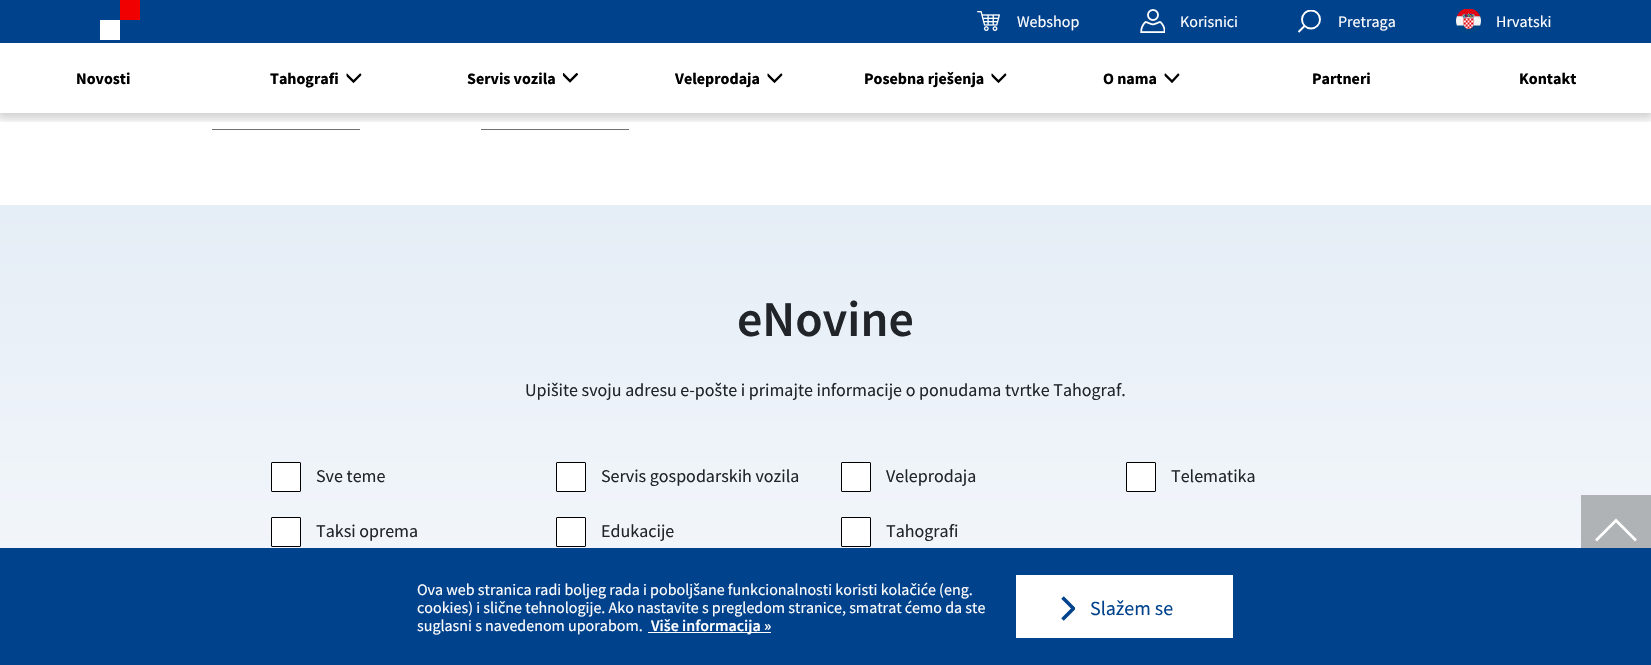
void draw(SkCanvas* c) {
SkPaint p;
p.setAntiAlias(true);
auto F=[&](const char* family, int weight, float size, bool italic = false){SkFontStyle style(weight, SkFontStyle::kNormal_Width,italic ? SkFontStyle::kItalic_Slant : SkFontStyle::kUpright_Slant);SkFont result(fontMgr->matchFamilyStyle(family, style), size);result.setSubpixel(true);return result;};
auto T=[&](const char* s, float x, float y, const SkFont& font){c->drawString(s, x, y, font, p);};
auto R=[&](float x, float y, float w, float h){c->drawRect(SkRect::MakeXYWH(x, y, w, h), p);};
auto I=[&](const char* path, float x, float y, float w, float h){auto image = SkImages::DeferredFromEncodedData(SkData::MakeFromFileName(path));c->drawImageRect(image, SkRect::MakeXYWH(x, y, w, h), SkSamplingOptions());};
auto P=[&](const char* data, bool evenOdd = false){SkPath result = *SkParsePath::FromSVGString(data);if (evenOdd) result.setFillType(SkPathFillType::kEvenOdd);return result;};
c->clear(0xffffffff);
p.setColor(0xff707070);
R(212,129,148,1);
R(481,129,148,1);
c->save();
c->clipRect(SkRect::MakeXYWH(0,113,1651,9));
p.setColor(0x1a000000);
p.setMaskFilter(SkMaskFilter::MakeBlur(kNormal_SkBlurStyle, 5));
c->drawRect(SkRect::MakeXYWH(-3,42,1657,76),p);
p.setMaskFilter(nullptr);
p.setMaskFilter(SkMaskFilter::MakeBlur(kNormal_SkBlurStyle, 5));
c->drawRect(SkRect::MakeXYWH(-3,42,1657,76),p);
p.setMaskFilter(nullptr);
c->restore();
p.setColor(0xff00428c);
R(0,0,1651,43);
p.setColor(0xfff00000);
R(120,0,20,20);
p.setColor(0xffffffff);
R(100,20,20,20);
I("1.png",977,11,23,20);
auto f1 = F("Source Sans Pro",400,16);
T("Webshop",1017,27,f1);
I("2.png",1140,9,25,24);
T("Korisnici",1180,27,f1);
c->save();
c->clipRect(SkRect::MakeXYWH(1298,10,23,23));
p.setStroke(true);
p.setStrokeWidth(1.9);
c->drawCircle(1311,19.5,9,p);
c->restore();
c->drawPath(P("M1304.5 26l-6 6"),p);
p.setStroke(false);
T("Pretraga",1338,27,f1);
I("3.png",1456,9,25,24);
T("Hrvatski",1496,27,f1);
auto f2 = F("Source Sans Pro",700,16);
p.setColor(0xff000000);
T("Novosti",76,84,f2);
T("Tahografi",270,84,f2);
c->save();
c->clipPath(P("M361.5 73v10h-15v-10z"),true);
p.setStroke(true);
p.setStrokeWidth(2.4);
c->drawPath(P("M361 74l-7.5 7.5l-7.5-7.5"),p);
c->restore();
p.setStroke(false);
T("Servis vozila",467,84,f2);
c->save();
c->clipPath(P("M578 73v10h-15v-10z"),true);
p.setStroke(true);
c->drawPath(P("M577.5 73.5l-7.5 7.5l-7.5-7.5"),p);
c->restore();
p.setStroke(false);
T("Veleprodaja",675,84,f2);
c->save();
c->clipPath(P("M782.5 73v10h-15v-10z"),true);
p.setStroke(true);
c->drawPath(P("M782 74l-7.5 7.5l-7.5-7.5"),p);
c->restore();
p.setStroke(false);
T("Posebna rješenja",864,84,f2);
c->save();
c->clipPath(P("M1006.5 73v10h-15v-10z"),true);
p.setStroke(true);
c->drawPath(P("M1006 74l-7.5 7.5l-7.5-7.5"),p);
c->restore();
p.setStroke(false);
T("O nama",1103,84,f2);
c->save();
c->clipPath(P("M1179.5 73v10h-15v-10z"),true);
p.setStroke(true);
c->drawPath(P("M1179 74l-7 7.5l-7.5-7.5"),p);
c->restore();
p.setStroke(false);
T("Partneri",1312,84,f2);
T("Kontakt",1519,84,f2);
{
const SkColor colors[] = {0xffffffff,0xffe5edf6};
const float stops[] = {0,1};
const SkPoint ends[] = {{826,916}, {826,205}};
p.setShader(SkGradientShader::MakeLinear(ends, colors, stops, 2, SkTileMode::kClamp));
p.setAlpha(255);
}
R(0,205,1651,343);
auto f3 = F("Source Sans Pro",600,50);
p.setShader(nullptr);
p.setColor(0xff212529);
T("eNovine",737,336,f3);
auto f4 = F("Source Sans Pro",400,18);
T("Upišite svoju adresu e-pošte i primajte informacije o ponudama tvrtke Tahograf.",525,396,f4);
p.setColor(0xffffffff);
c->drawRoundRect(SkRect::MakeXYWH(271.5,462.5,29,29),.5,.5,p);
p.setStroke(true);
p.setStrokeWidth(1);
p.setColor(0xff000000);
c->drawRoundRect(SkRect::MakeXYWH(271.5,462.5,29,29),.5,.5,p);
p.setStroke(false);
p.setColor(0xff212529);
T("Sve teme",316,482,f4);
p.setColor(0xffffffff);
c->drawRoundRect(SkRect::MakeXYWH(556.5,462.5,29,29),.5,.5,p);
p.setStroke(true);
p.setColor(0xff000000);
c->drawRoundRect(SkRect::MakeXYWH(556.5,462.5,29,29),.5,.5,p);
p.setStroke(false);
p.setColor(0xff212529);
T("Servis gospodarskih vozila",601,482,f4);
p.setColor(0xffffffff);
c->drawRoundRect(SkRect::MakeXYWH(841.5,462.5,29,29),.5,.5,p);
p.setStroke(true);
p.setColor(0xff000000);
c->drawRoundRect(SkRect::MakeXYWH(841.5,462.5,29,29),.5,.5,p);
p.setStroke(false);
p.setColor(0xff212529);
T("Veleprodaja",886,482,f4);
p.setColor(0xffffffff);
c->drawRoundRect(SkRect::MakeXYWH(1126.5,462.5,29,29),.5,.5,p);
p.setStroke(true);
p.setColor(0xff000000);
c->drawRoundRect(SkRect::MakeXYWH(1126.5,462.5,29,29),.5,.5,p);
p.setStroke(false);
p.setColor(0xff212529);
T("Telematika",1171,482,f4);
p.setColor(0xffffffff);
c->drawRoundRect(SkRect::MakeXYWH(271.5,517.5,29,29),.5,.5,p);
p.setStroke(true);
p.setColor(0xff000000);
c->drawRoundRect(SkRect::MakeXYWH(271.5,517.5,29,29),.5,.5,p);
p.setStroke(false);
p.setColor(0xff212529);
T("Taksi oprema",316,537,f4);
p.setColor(0xffffffff);
c->drawRoundRect(SkRect::MakeXYWH(556.5,517.5,29,29),.5,.5,p);
p.setStroke(true);
p.setColor(0xff000000);
c->drawRoundRect(SkRect::MakeXYWH(556.5,517.5,29,29),.5,.5,p);
p.setStroke(false);
p.setColor(0xff212529);
T("Edukacije",601,537,f4);
p.setColor(0xffffffff);
c->drawRoundRect(SkRect::MakeXYWH(841.5,517.5,29,29),.5,.5,p);
p.setStroke(true);
p.setColor(0xff000000);
c->drawRoundRect(SkRect::MakeXYWH(841.5,517.5,29,29),.5,.5,p);
p.setStroke(false);
p.setColor(0xff212529);
T("Tahografi",886,537,f4);
p.setColor(0xffb0b3b5);
R(1581,495,70,53);
p.setStroke(true);
p.setStrokeWidth(2.7);
p.setColor(0xffffffff);
c->drawPath(P("M1596 540.5l20-20l20 20"),p);
p.setStroke(false);
p.setColor(0xff00428c);
R(0,548,1651,117);
p.setColor(0xffffffff);
T("Ova web stranica radi boljeg rada i poboljšane funkcionalnosti koristi kolačiće (eng.",417,595,f1);
T("cookies) i slične tehnologije. Ako nastavite s pregledom stranice, smatrat ćemo da ste",417,613,f1);
T("suglasni s navedenom uporabom.",417,631,f1);
R(648,632,123,1);
auto f5 = F("Source Sans Pro",600,16);
T("Više informacija »",651,631,f5);
R(1016,575,217,63);
c->save();
c->clipRect(SkRect::MakeXYWH(1061,596,14,25));
p.setStroke(true);
p.setStrokeWidth(3.6);
p.setColor(0xff00428c);
c->drawPath(P("M1062.5 597.5l11 11l-11 11"),p);
c->restore();
auto f6 = F("Source Sans Pro",400,20);
p.setStroke(false);
T("Slažem se",1090,615,f6);
}
